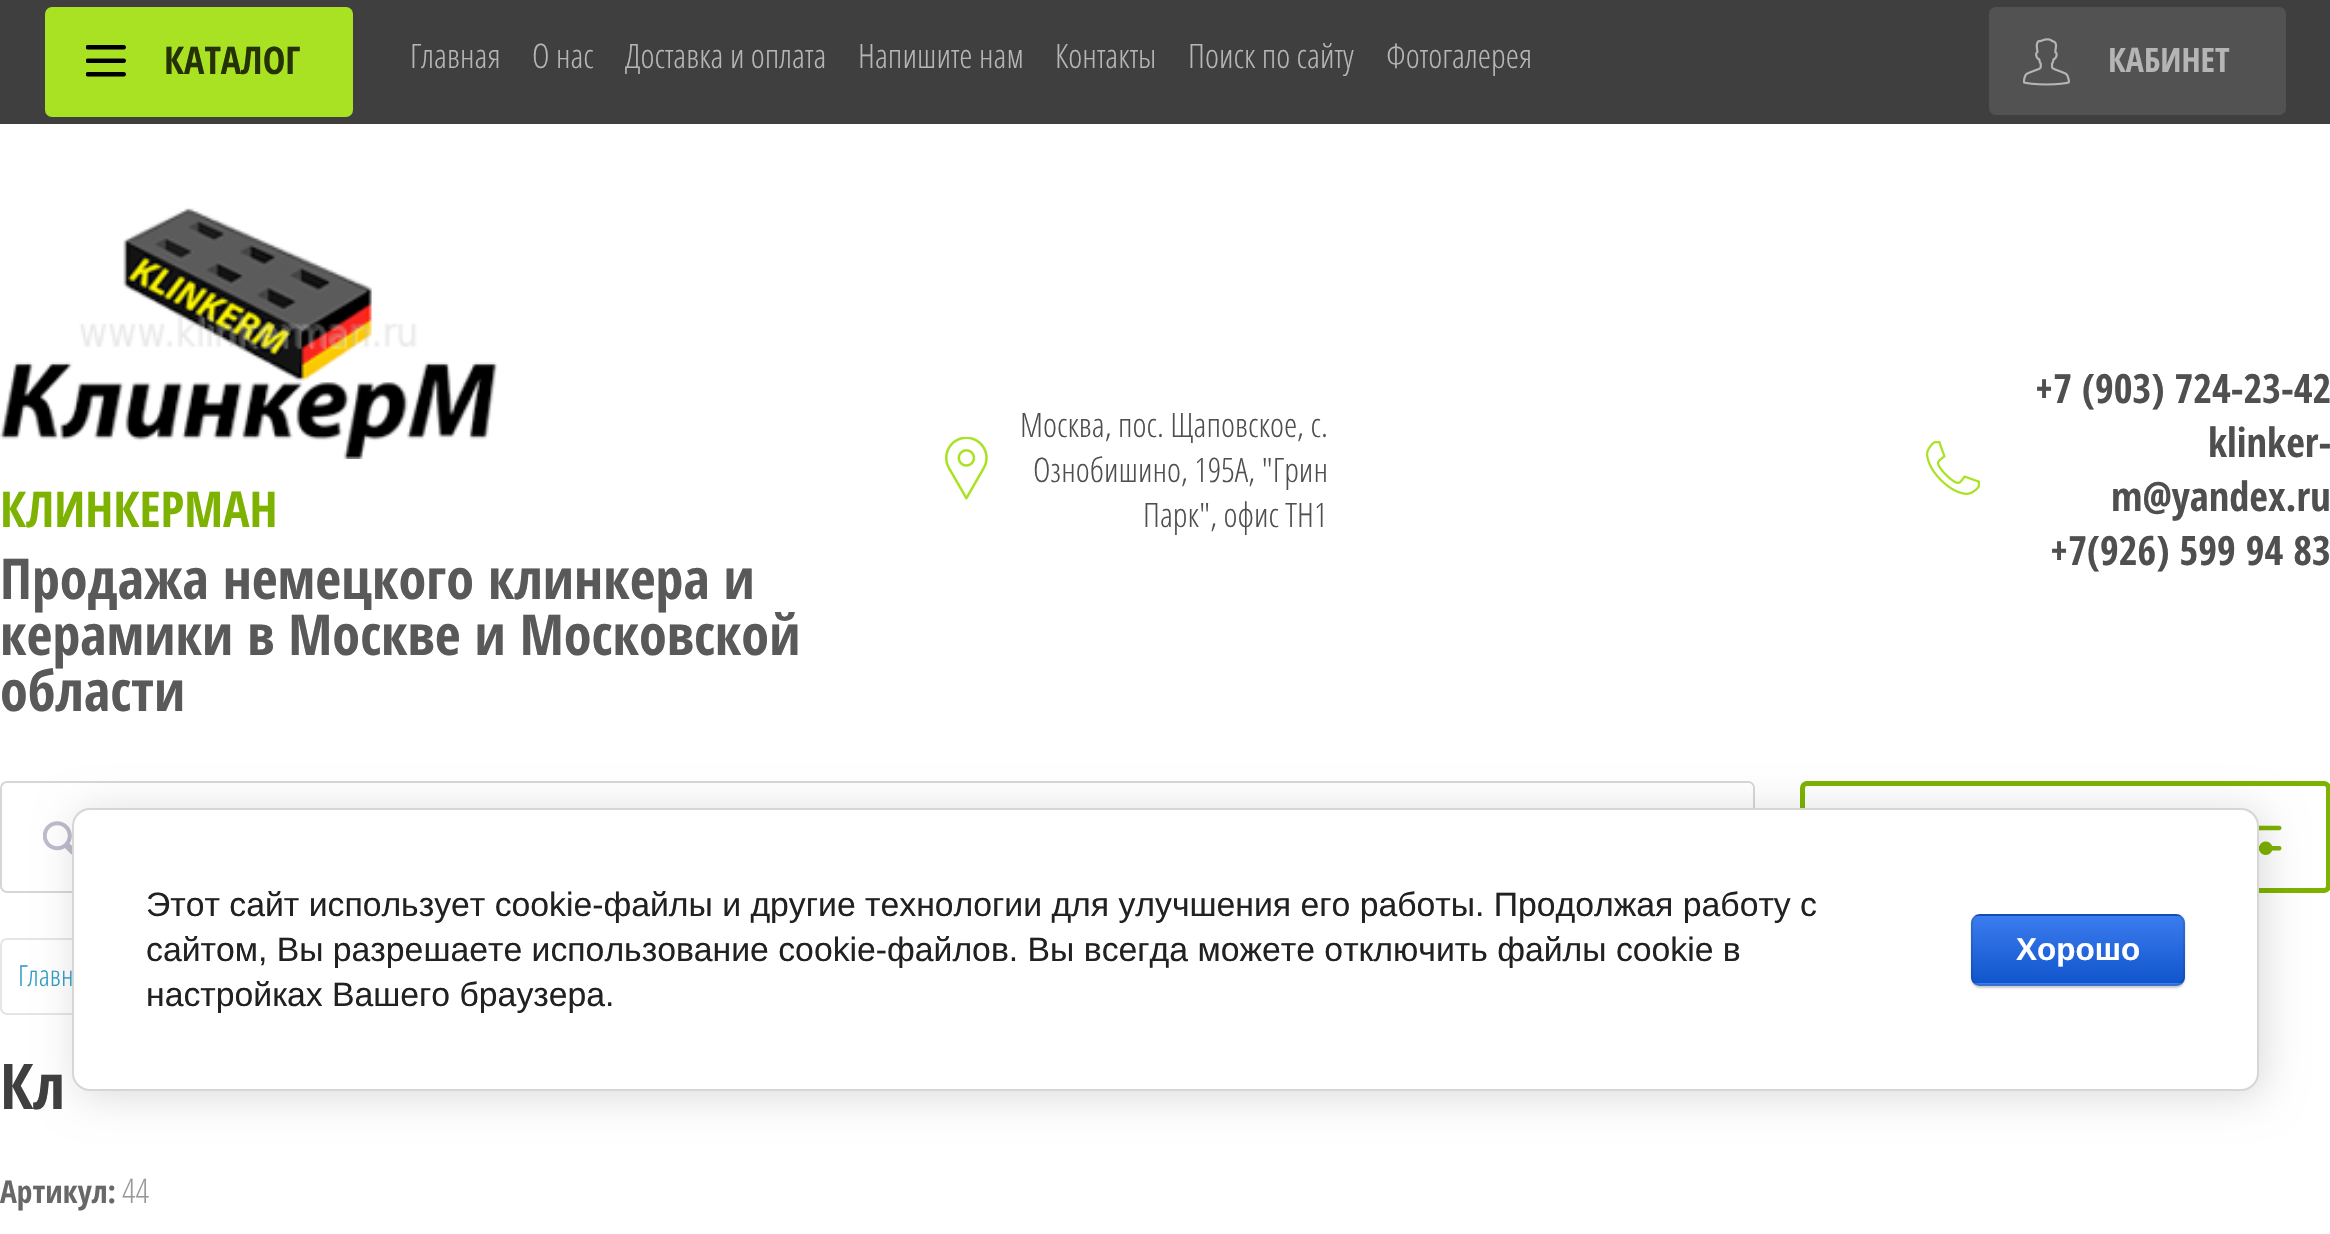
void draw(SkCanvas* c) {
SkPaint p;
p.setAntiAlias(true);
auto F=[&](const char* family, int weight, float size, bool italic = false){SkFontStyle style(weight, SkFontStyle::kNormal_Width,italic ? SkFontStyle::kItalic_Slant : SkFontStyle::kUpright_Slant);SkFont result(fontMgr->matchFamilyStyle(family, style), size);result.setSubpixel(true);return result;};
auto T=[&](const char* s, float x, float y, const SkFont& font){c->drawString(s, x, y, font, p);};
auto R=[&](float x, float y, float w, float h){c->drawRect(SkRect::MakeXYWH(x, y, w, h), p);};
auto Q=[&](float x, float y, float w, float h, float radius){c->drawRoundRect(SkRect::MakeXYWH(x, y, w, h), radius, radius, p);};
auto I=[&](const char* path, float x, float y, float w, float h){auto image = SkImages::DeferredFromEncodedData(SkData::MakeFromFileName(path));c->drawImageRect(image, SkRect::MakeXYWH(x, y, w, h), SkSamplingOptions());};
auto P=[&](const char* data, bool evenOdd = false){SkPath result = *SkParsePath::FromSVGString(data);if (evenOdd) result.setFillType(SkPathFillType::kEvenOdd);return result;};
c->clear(0xffffffff);
p.setColor(0xff3f3f3f);
R(0,0,2330,124);
p.setColor(0xffa9e222);
Q(45,7,308,110,7);
I("1.png",86,45,40,32);
auto f1 = F("Open Sans Condensed",700,38);
p.setColor(0xff253206);
T("КАТАЛОГ",164,74,f1);
auto f2 = F("Open Sans",300,33.75);
p.setColor(0xffb5b5b5);
T("Главная",410,68,f2);
T("О нас",532,68,f2);
T("Доставка и оплата",625,68,f2);
T("Напишите нам",858,68,f2);
T("Контакты",1055,68,f2);
T("Поиск по сайту",1188,68,f2);
T("Фотогалерея",1386,68,f2);
p.setColor(0xff525252);
Q(1989,7,297,108,7);
I("2.png",2023,38,47,48);
auto f3 = F("Open Sans Condensed",700,33.75);
p.setColor(0xffb5b5b5);
T("КАБИНЕТ",2108,72,f3);
I("3.png",0,207,498,252);
auto f4 = F("Open Sans Condensed",700,49.5);
p.setColor(0xff7db200);
T("КЛИНКЕРМАН",0,527,f4);
auto f5 = F("Open Sans Condensed",700,56.25);
p.setColor(0xff595959);
T("Продажа немецкого клинкера и",0,599,f5);
T("керамики в Москве и Московской",0,655,f5);
T("области",0,711,f5);
I("4.png",945,437,43,63);
p.setColor(0xff504f4f);
T("Москва, пос. Щаповское, с.",1020,437,f2);
T("Ознобишино, 195А, \"Грин",1033,482,f2);
T("Парк\", офис ТН1",1143,527,f2);
I("5.png",1926,441,54,54);
auto f6 = F("Open Sans Condensed",700,40.5);
T("+7 (903) 724-23-42",2035,403,f6);
T("klinker-",2208,457,f6);
T("m@yandex.ru",2111,511,f6);
T("+7(926) 599 94 83",2050,565,f6);
p.setStroke(true);
p.setStrokeWidth(2);
p.setColor(0xffd6d6d6);
c->drawRoundRect(SkRect::MakeXYWH(1,782,1753,110),6,6,p);
I("6.png",43,821,29,34);
p.setStroke(false);
p.setColor(0xffffffff);
Q(115,783,1638,97,5);
p.setStroke(true);
p.setStrokeWidth(5);
p.setColor(0xff7db200);
c->drawRoundRect(SkRect::MakeXYWH(1802.5,783.5,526,107),4.5,4.5,p);
I("7.png",2258,825,24,30);
p.setStrokeWidth(2);
p.setColor(0xffe5e5e5);
c->drawRoundRect(SkRect::MakeXYWH(1,939,880,75),6,6,p);
auto f7 = F("Open Sans",300,29);
p.setStroke(false);
p.setColor(0xff319cc6);
T("Главн",18,986,f7);
auto f8 = F("Open Sans Condensed",700,63);
p.setColor(0xff3f3f3f);
T("Кл",0,1109,f8);
auto f9 = F("Open Sans Condensed",700,31.5);
p.setColor(0xff686868);
T("Артикул:",0,1203,f9);
p.setColor(0xff999999);
T("44",122,1203,f2);
p.setColor(0x24000000);
p.setMaskFilter(SkMaskFilter::MakeBlur(kNormal_SkBlurStyle, 20));
c->drawRoundRect(SkRect::MakeXYWH(77,812,2187,284),18,18,p);
p.setMaskFilter(nullptr);
p.setColor(0xffffffff);
c->drawRoundRect(SkRect::MakeXYWH(73,809,2185,281),17,17,p);
p.setStroke(true);
p.setColor(0xffd6d6d6);
c->drawRoundRect(SkRect::MakeXYWH(73,809,2185,281),17,17,p);
auto f10 = F("Liberation Sans",400,33.75);
p.setStroke(false);
p.setColor(0xff212121);
T("Этот сайт использует cookie-файлы и другие технологии для улучшения его работы. Продолжая работу с",146,916,f10);
T("сайтом, Вы разрешаете использование cookie-файлов. Вы всегда можете отключить файлы cookie в",146,961,f10);
T("настройках Вашего браузера.",146,1006,f10);
p.setColor(0x33000000);
p.setMaskFilter(SkMaskFilter::MakeBlur(kNormal_SkBlurStyle, 1));
c->drawRoundRect(SkRect::MakeXYWH(1971,916,214,72),9,9,p);
p.setMaskFilter(nullptr);
c->save();
c->clipPath(P("M1980 914h196c5 0 9 4 9 9v54c0 5-4 9-9 9h-196c-5 0-9-4-9-9v-54c0-5 4-9 9-9z"),true);
{
const SkColor colors[] = {0xff3b7cef,0xff1155cc};
const float stops[] = {0,1};
const SkPoint ends[] = {{2078,848}, {2078,916}};
p.setShader(SkGradientShader::MakeLinear(ends, colors, stops, 2, SkTileMode::kClamp));
p.setAlpha(255);
}
R(1971,914,214,2);
{
const SkColor colors[] = {0xff3b7cef,0xff1155cc};
const float stops[] = {0,1};
const SkPoint ends[] = {{2078,916}, {2078,983}};
p.setShader(SkGradientShader::MakeLinear(ends, colors, stops, 2, SkTileMode::kClamp));
p.setAlpha(255);
}
R(1971,916,214,67);
{
const SkColor colors[] = {0xff3b7cef,0xff1155cc};
const float stops[] = {0,1};
const SkPoint ends[] = {{2078,983}, {2078,1051}};
p.setShader(SkGradientShader::MakeLinear(ends, colors, stops, 2, SkTileMode::kClamp));
p.setAlpha(255);
}
R(1971,983,214,3);
c->restore();
p.setStroke(true);
p.setShader(nullptr);
p.setColor(0x1a000000);
c->drawRoundRect(SkRect::MakeXYWH(1972,915,212,70),8,8,p);
auto f11 = F("Liberation Sans",700,31.5);
p.setStroke(false);
p.setColor(0xffffffff);
T("Хорошо",2016,960,f11);
}
